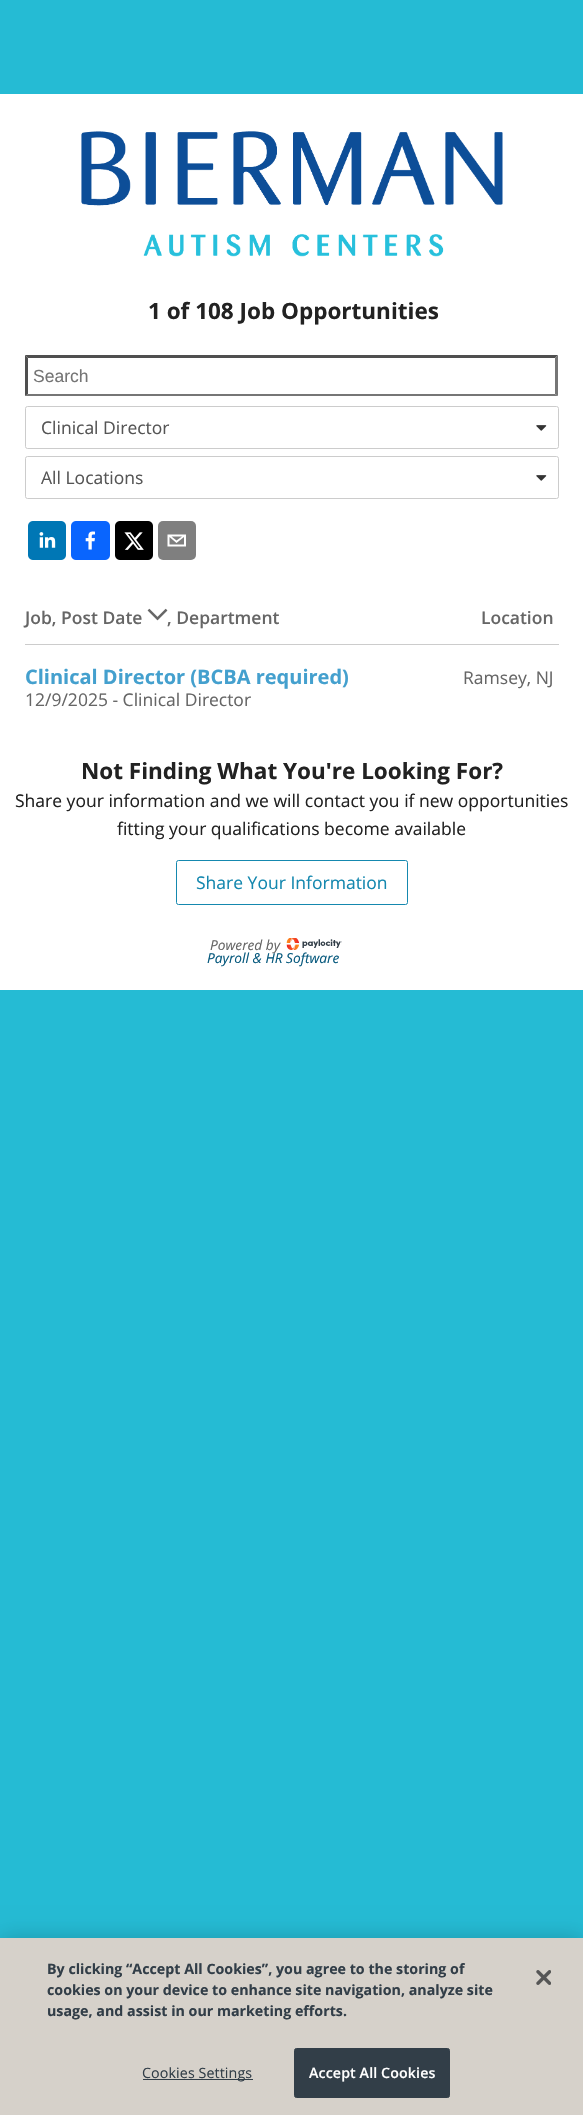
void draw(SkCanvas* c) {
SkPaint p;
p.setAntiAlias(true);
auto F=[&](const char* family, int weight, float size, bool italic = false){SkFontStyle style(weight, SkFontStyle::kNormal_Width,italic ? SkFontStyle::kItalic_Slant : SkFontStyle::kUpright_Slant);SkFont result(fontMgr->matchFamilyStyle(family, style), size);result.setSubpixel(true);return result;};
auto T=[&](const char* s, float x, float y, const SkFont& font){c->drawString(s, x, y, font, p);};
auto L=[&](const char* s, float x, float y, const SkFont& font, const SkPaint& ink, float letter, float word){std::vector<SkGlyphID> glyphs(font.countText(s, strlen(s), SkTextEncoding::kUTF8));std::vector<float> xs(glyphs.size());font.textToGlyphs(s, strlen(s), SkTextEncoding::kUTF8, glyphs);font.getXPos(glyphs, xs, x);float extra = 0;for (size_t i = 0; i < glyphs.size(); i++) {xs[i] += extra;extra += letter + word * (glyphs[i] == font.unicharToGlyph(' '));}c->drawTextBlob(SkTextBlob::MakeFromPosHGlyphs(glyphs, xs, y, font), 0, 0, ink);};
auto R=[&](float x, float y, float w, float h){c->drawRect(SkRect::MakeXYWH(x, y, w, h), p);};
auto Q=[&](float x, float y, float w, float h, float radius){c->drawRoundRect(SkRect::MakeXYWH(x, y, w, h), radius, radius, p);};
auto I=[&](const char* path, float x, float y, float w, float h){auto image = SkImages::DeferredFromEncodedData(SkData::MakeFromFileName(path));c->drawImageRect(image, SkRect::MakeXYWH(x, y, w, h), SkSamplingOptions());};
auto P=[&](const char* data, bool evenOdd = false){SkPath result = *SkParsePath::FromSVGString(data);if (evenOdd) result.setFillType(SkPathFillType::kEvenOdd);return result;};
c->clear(0xff25bbd4);
p.setColor(0xffffffff);
R(0,94,583,896);
I("1.png",81,131,422,126);
auto f1 = F("Open Sans",700,22.5);
p.setColor(0xff222222);
T("1 of 108 Job Opportunities",148,319,f1);
p.setColor(0xff4f4f4f);
c->drawPath(P("M25 355h533l-3 3h-527z"),p);
p.setColor(0xff767676);
c->drawPath(P("M558 355v41l-3-2v-36z"),p);
c->drawPath(P("M558 396h-533l3-2h527z"),p);
p.setColor(0xff4f4f4f);
c->drawPath(P("M25 396v-41l3 3v36z"),p);
auto f2 = F("Liberation Sans",400,17.5);
p.setColor(0xff757575);
T("Search",33,382,f2);
p.setStroke(true);
p.setStrokeWidth(1);
p.setColor(0xffcccccc);
c->drawRoundRect(SkRect::MakeXYWH(25.5,406.5,533,42),2,2,p);
auto f3 = F("Open Sans",400,17.5);
p.setStroke(false);
p.setColor(0xff555555);
T("Clinical Director",41,434,f3);
I("2.png",536,425,11,6);
p.setStroke(true);
p.setColor(0xffcccccc);
c->drawRoundRect(SkRect::MakeXYWH(25.5,456.5,533,42),2,2,p);
p.setStroke(false);
p.setColor(0xff555555);
T("All Locations",41,484,f3);
I("2.png",536,475,11,6);
I("3.png",28,521,38,39);
I("4.png",71,521,39,39);
I("5.png",115,521,38,39);
p.setColor(0xff7f7f7f);
Q(158,521,38,39,5);
p.setColor(0xffffffff);
c->drawPath(P("M167.5 534.5v12h18.5v-12zm14.5 2l-5.5 4l-5-4zm-12.5 8v-7.5l7 6l7.5-6v7.5z"),p);
p.setColor(0xffcccccc);
R(25,644,534,1);
auto f4 = F("Open Sans",600,17.5);
p.setColor(0xff666666);
T("Job, Post Date",25,624,f4);
I("6.png",147,608,21,13);
T(", Department",167,624,f4);
T("Location",481,624,f4);
auto f5 = F("Open Sans",700,20);
p.setColor(0xff44a0ce);
T("Clinical Director (BCBA required)",25,684,f5);
p.setColor(0xff666666);
T("12/9/2025 - Clinical Director",25,706,f3);
T("Ramsey, NJ",463,684,f3);
p.setColor(0xff222222);
T("Not Finding What You're Looking For?",81,779,f1);
T("Share your information and we will contact you if new opportunities",15,807,f3);
T("fitting your qualifications become available",117,835,f3);
p.setStroke(true);
p.setColor(0xff1588af);
c->drawRoundRect(SkRect::MakeXYWH(176.5,860.5,231,44),2,2,p);
p.setStroke(false);
T("Share Your Information",196,889,f3);
auto f6 = F("Open Sans",400,13.75,true);
p.setColor(0xff666666);
T("Powered by",210,950,f6);
I("7.png",286,938,56,12);
p.setColor(0xff085a7e);
T("Payroll & HR Software",207,963,f6);
p.setColor(0x33000000);
p.setMaskFilter(SkMaskFilter::MakeBlur(kNormal_SkBlurStyle, 11));
c->drawRect(SkRect::MakeXYWH(0,1938,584,177),p);
p.setMaskFilter(nullptr);
p.setColor(0xffd6d1ca);
R(0,1938,583,177);
auto f7 = F("Open Sans",700,14.25);
p.setColor(0xff323e48);
T("By clicking “Accept All Cookies”, you agree to the storing of",47,1974,f7);
T("cookies on your device to enhance site navigation, analyze site",47,1995,f7);
T("usage, and assist in our marketing efforts.",47,2016,f7);
R(143,2079,110,1);
auto f8 = F("Open Sans",400,14.25);
L("Cookies Settings",142,2078,f8,p,.1,0);
c->drawRoundRect(SkRect::MakeXYWH(294.5,2048.5,155,49),2,2,p);
p.setStroke(true);
c->drawRoundRect(SkRect::MakeXYWH(294.5,2048.5,155,49),2,2,p);
auto f9 = F("Open Sans",600,14.25);
p.setStroke(false);
p.setColor(0xffffffff);
L("Accept All Cookies",309,2078,f9,p,.1,0);
I("8.png",536,1970,15,15);
}
